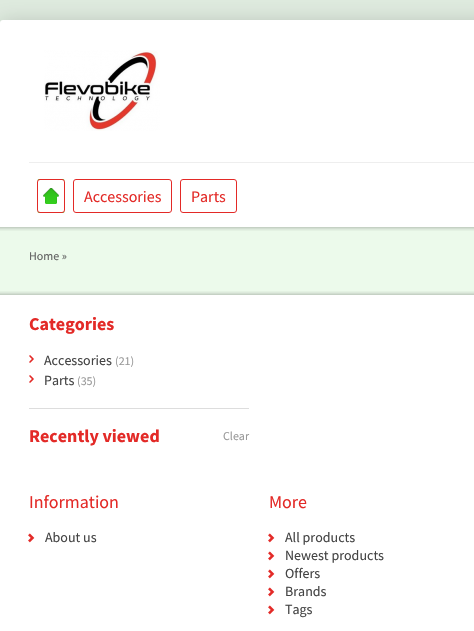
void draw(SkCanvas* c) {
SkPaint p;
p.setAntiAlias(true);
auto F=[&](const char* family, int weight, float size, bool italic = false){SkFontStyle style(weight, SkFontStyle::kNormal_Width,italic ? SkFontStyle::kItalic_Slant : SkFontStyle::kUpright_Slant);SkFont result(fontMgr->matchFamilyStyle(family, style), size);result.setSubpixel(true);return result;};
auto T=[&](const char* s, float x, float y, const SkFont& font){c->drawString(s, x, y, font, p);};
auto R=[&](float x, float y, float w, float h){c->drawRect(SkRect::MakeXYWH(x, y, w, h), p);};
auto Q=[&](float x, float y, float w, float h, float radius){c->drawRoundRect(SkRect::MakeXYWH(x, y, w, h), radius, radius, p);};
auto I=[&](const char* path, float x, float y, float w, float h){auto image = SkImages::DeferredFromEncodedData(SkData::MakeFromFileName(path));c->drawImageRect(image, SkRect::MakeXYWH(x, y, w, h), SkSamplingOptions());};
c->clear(0xffdfebdf);
p.setColor(0x26000000);
p.setMaskFilter(SkMaskFilter::MakeBlur(kNormal_SkBlurStyle, 10));
c->drawRoundRect(SkRect::MakeXYWH(0,20,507,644),3,3,p);
p.setMaskFilter(nullptr);
p.setColor(0xffffffff);
Q(0,20,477,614,3);
I("1.png",44,50,116,81);
p.setColor(0xffeeeeee);
R(29,162,445,1);
p.setColor(0xff35d11e);
Q(37,179,28,34,3);
I("2.png",37,180,28,32);
p.setStroke(true);
p.setStrokeWidth(1);
p.setColor(0xffe32a27);
c->drawRoundRect(SkRect::MakeXYWH(37.5,179.5,27,33),2.5,2.5,p);
c->drawRoundRect(SkRect::MakeXYWH(73.5,179.5,98,33),2.5,2.5,p);
auto f1 = F("Source Sans Pro",400,16);
p.setStroke(false);
T("Accessories",84,202,f1);
p.setStroke(true);
c->drawRoundRect(SkRect::MakeXYWH(180.5,179.5,56,33),2.5,2.5,p);
p.setStroke(false);
T("Parts",191,202,f1);
p.setColor(0xffecfaeb);
R(0,227,474,68);
I("3.png",0,227,474,4);
auto f2 = F("Source Sans Pro",400,12);
p.setColor(0xff616161);
T("Home »",29,260,f2);
I("4.png",0,291,474,4);
p.setColor(0xffdddddd);
R(29,408,220,1);
auto f3 = F("Source Sans Pro",700,18);
p.setColor(0xffe32a27);
T("Categories",29,330,f3);
R(29,355,5,8);
I("5.png",29,350,15,15);
auto f4 = F("Source Sans Pro",400,14);
p.setColor(0xff444444);
T("Accessories",44,365,f4);
p.setColor(0xff999999);
T("(21)",115,365,f2);
p.setColor(0xffe32a27);
R(29,375,5,8);
I("5.png",29,370,15,15);
p.setColor(0xff444444);
T("Parts",44,385,f4);
p.setColor(0xff999999);
T("(35)",77,385,f2);
p.setColor(0xffe32a27);
T("Recently viewed",29,442,f3);
p.setColor(0xff999999);
T("Clear",223,440,f2);
auto f5 = F("Source Sans Pro",400,18);
p.setColor(0xffe32a27);
T("Information",29,508,f5);
I("6.png",28,533,7,10);
p.setColor(0xff444444);
T("About us",45,542,f4);
p.setColor(0xffe32a27);
T("More",269,508,f5);
I("6.png",268,533,7,10);
p.setColor(0xff444444);
T("All products",285,542,f4);
I("6.png",268,551,7,10);
T("Newest products",285,560,f4);
I("6.png",268,569,7,10);
T("Offers",285,578,f4);
I("6.png",268,587,7,10);
T("Brands",285,596,f4);
I("6.png",268,605,7,10);
T("Tags",285,614,f4);
}
